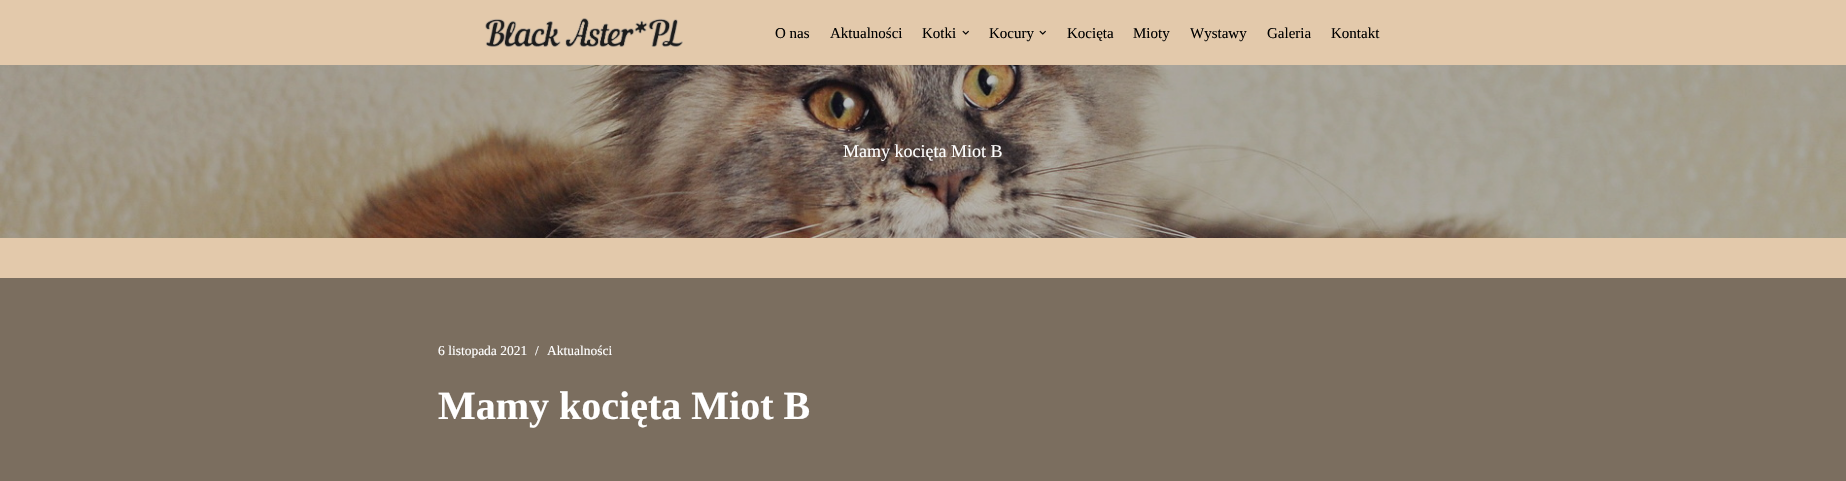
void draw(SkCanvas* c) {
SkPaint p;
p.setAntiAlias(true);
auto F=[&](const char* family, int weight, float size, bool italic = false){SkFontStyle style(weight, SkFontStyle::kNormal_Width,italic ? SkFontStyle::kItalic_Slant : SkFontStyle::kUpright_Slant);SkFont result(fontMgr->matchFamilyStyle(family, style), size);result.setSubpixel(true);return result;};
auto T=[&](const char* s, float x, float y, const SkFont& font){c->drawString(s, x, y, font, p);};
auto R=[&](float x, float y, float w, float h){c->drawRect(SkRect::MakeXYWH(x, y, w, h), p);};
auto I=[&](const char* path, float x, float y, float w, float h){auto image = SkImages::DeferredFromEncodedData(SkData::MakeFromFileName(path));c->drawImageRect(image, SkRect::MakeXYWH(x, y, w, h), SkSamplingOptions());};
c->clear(0xffe3c9ab);
p.setColor(0xff7b6e5f);
R(0,278,1846,203);
I("1.png",485,18,198,29);
auto f1 = F("Liberation Serif",400,15);
p.setColor(0xff000000);
T("O nas",775,38,f1);
T("Aktualności",830,38,f1);
T("Kotki",922,38,f1);
I("2.png",962,30,7,5);
T("Kocury",989,38,f1);
I("2.png",1039,30,7,5);
T("Kocięta",1067,38,f1);
T("Mioty",1133,38,f1);
T("Wystawy",1190,38,f1);
T("Galeria",1267,38,f1);
T("Kontakt",1331,38,f1);
I("3.png",0,65,1846,173);
p.setColor(0x42000000);
R(0,65,1846,173);
auto f2 = F("Liberation Serif",400,18);
p.setColor(0xffffffff);
T("Mamy kocięta Miot B",843,157,f2);
auto f3 = F("Liberation Serif",400,13.5);
T("6 listopada 2021",438,355,f3);
T("/",535,355,f3);
T("Aktualności",547,355,f3);
auto f4 = F("Liberation Serif",700,40);
T("Mamy kocięta Miot B",438,419,f4);
}
